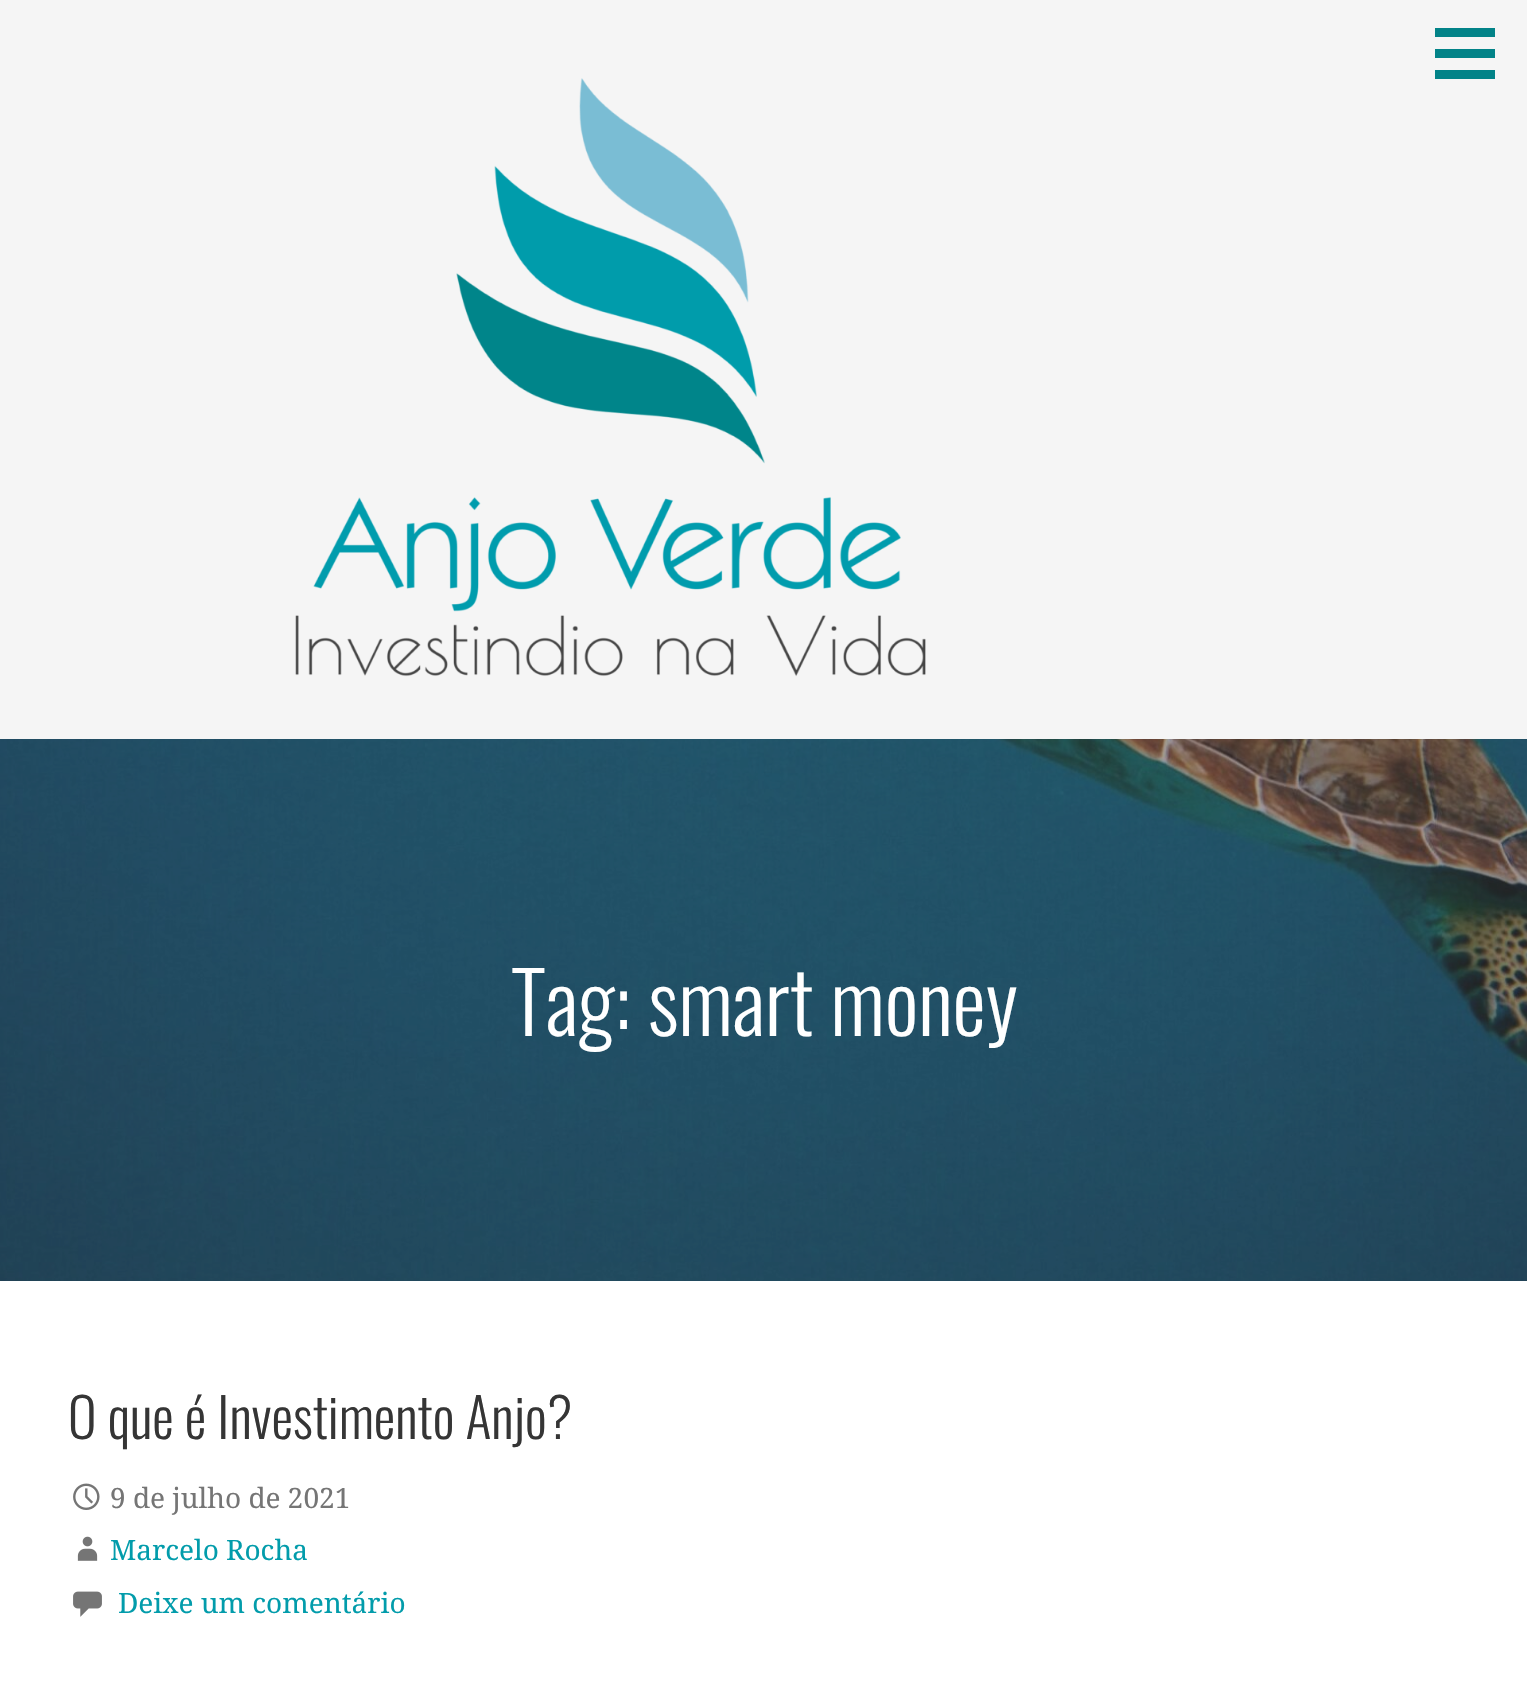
void draw(SkCanvas* c) {
SkPaint p;
p.setAntiAlias(true);
auto F=[&](const char* family, int weight, float size, bool italic = false){SkFontStyle style(weight, SkFontStyle::kNormal_Width,italic ? SkFontStyle::kItalic_Slant : SkFontStyle::kUpright_Slant);SkFont result(fontMgr->matchFamilyStyle(family, style), size);result.setSubpixel(true);return result;};
auto T=[&](const char* s, float x, float y, const SkFont& font){c->drawString(s, x, y, font, p);};
auto R=[&](float x, float y, float w, float h){c->drawRect(SkRect::MakeXYWH(x, y, w, h), p);};
auto I=[&](const char* path, float x, float y, float w, float h){auto image = SkImages::DeferredFromEncodedData(SkData::MakeFromFileName(path));c->drawImageRect(image, SkRect::MakeXYWH(x, y, w, h), SkSamplingOptions());};
c->clear(0xffffffff);
I("1.png",0,739,1527,542);
p.setColor(0xfff5f5f5);
R(0,0,1527,739);
p.setColor(0xff028388);
R(1435,28,60,9);
R(1435,49,60,9);
R(1435,70,60,9);
I("2.png",295,78,631,599);
auto f1 = F("Oswald",300,84);
p.setColor(0xffffffff);
T("Tag: smart money",511,1036,f1);
auto f2 = F("Oswald",300,54.25);
p.setColor(0xff353535);
T("O que é Investimento Anjo?",68,1439,f2);
I("3.png",73,1483,27,27);
auto f3 = F("Droid Serif",400,28);
p.setColor(0xff757575);
T("9 de julho de 2021",110,1508,f3);
I("4.png",77,1536,21,25);
p.setColor(0xff029cab);
T("Marcelo Rocha",110,1560,f3);
I("5.png",73,1591,29,26);
T("Deixe um comentário",118,1613,f3);
}
